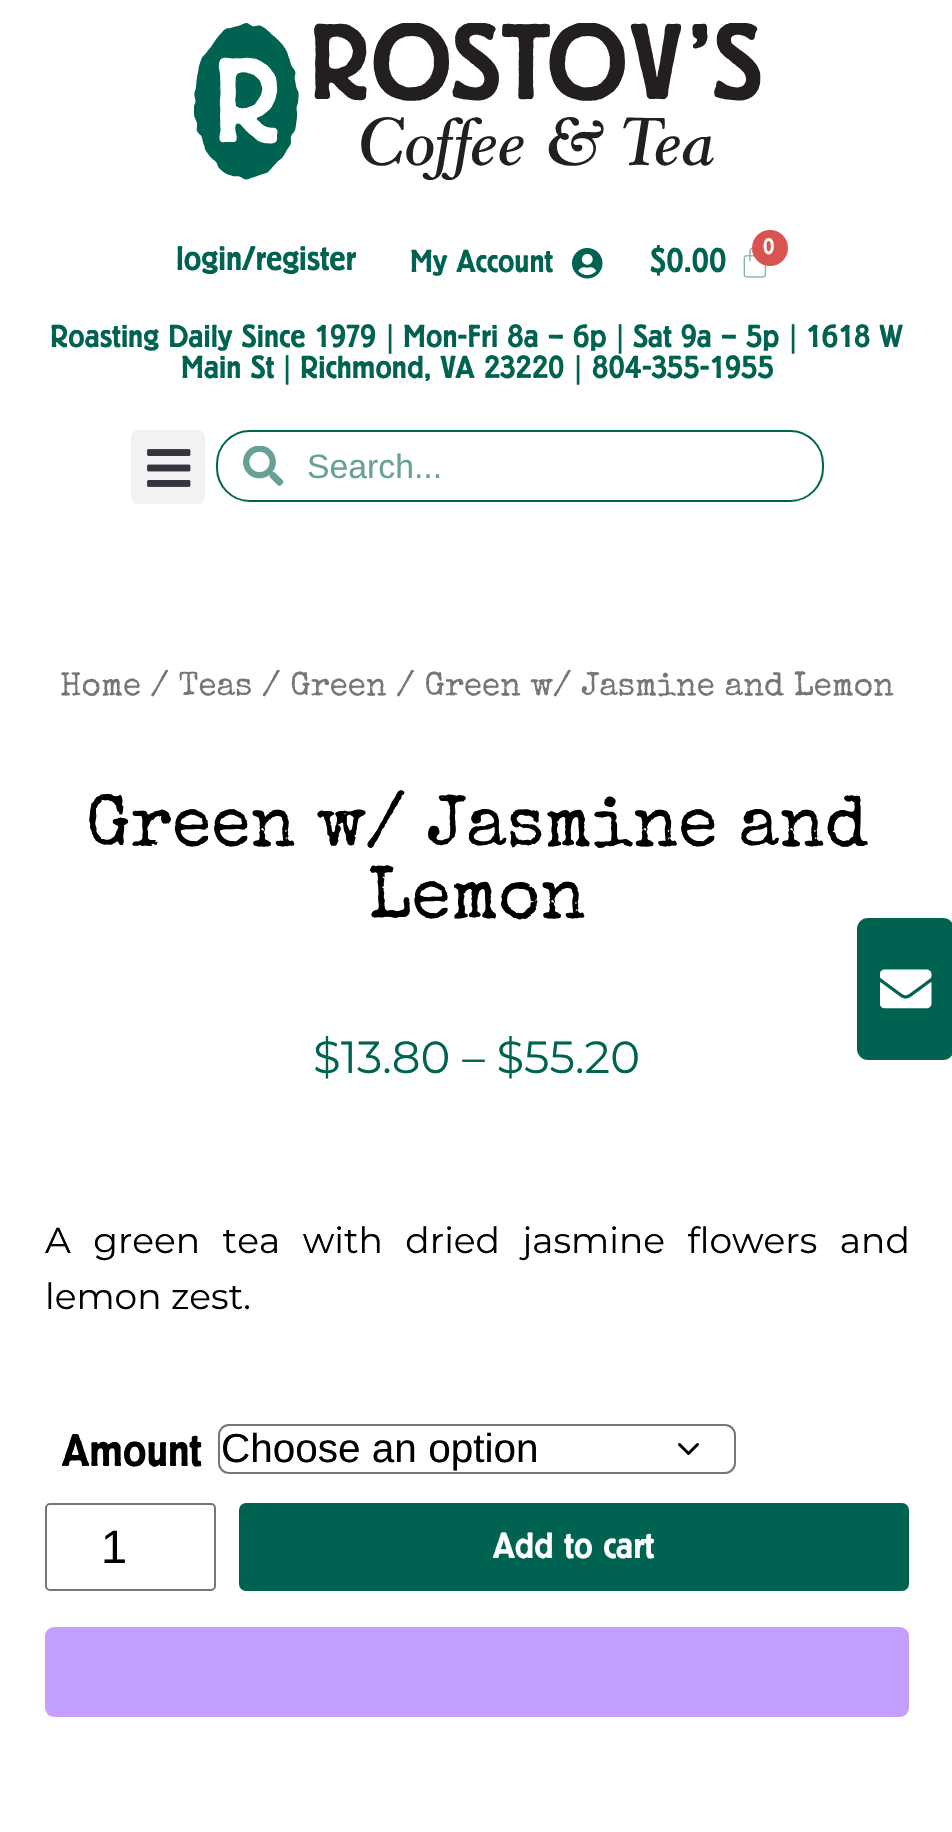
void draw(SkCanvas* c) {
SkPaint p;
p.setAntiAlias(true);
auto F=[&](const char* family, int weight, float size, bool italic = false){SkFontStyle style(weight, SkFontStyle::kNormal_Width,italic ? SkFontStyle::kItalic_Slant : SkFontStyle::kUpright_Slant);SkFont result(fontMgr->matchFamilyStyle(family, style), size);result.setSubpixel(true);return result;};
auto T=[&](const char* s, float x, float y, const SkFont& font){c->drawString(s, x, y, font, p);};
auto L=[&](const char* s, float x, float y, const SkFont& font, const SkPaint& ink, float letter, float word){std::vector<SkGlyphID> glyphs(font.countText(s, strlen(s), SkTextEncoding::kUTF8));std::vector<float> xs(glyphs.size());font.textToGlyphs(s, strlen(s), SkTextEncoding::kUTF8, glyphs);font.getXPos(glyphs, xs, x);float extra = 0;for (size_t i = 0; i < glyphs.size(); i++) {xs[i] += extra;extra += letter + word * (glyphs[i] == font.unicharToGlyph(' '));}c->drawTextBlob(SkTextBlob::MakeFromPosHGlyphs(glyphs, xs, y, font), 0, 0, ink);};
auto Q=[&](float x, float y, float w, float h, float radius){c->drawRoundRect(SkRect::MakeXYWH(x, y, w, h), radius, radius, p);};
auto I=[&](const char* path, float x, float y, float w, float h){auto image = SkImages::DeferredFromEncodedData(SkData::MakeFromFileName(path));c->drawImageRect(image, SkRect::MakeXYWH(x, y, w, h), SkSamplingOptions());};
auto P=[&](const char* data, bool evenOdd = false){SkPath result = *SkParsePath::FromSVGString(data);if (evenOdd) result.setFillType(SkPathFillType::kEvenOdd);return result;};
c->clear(0xffffffff);
I("1.png",194,23,567,157);
auto f1 = F("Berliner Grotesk",500,33.75);
p.setColor(0xff006351);
T("login/register",176,270,f1);
auto f2 = F("Berliner Grotesk",500,31.5);
T("My Account",410,272,f2);
I("2.png",572,248,31,31);
T("$0.00",650,272,f1);
I("3.png",743,247,24,31);
p.setColor(0xffd9534f);
c->drawCircle(770,248,18,p);
auto f3 = F("Berliner Grotesk",500,22);
p.setColor(0xffffffff);
T("0",763,254,f3);
p.setColor(0xff006351);
T("Roasting Daily Since 1979",50,347,f2);
auto f4 = F("Liberation Sans",400,31.5);
T("|",386,347,f4);
T("Mon-Fri 8a – 6p",403,347,f2);
T("|",616,347,f4);
T("Sat 9a – 5p",633,347,f2);
T("|",789,347,f4);
T("1618 W",806,347,f2);
T("Main St",181,378,f2);
T("|",283,378,f4);
T("Richmond, VA 23220",300,378,f2);
T("|",574,378,f4);
T("804-355-1955",592,378,f2);
p.setColor(0xfff2f2f2);
Q(131,430,74,74,7);
I("4.png",147,449,44,38);
p.setStroke(true);
p.setStrokeWidth(2);
p.setColor(0xff006351);
c->drawRoundRect(SkRect::MakeXYWH(217,431,606,70),33,33,p);
I("5.png",243,446,41,40);
auto f5 = F("Liberation Sans",400,33.75);
p.setStroke(false);
p.setColor(0xff66a197);
T("Search...",307,478,f5);
p.setColor(0xff006351);
Q(857,918,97,142,11);
I("6.png",880,969,52,40);
auto f6 = F("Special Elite",400,33.1);
p.setColor(0xff767676);
T("Home / Teas / Green / Green w/ Jasmine and Lemon",60,695,f6);
auto f7 = F("Special Elite",400,72);
p.setColor(0xff000000);
T("Green w/ Jasmine and",86,845,f7);
T("Lemon",368,917,f7);
auto f8 = F("Montserrat",400,45);
p.setColor(0xff006351);
T("$13.80 – $55.20",313,1073,f8);
auto f9 = F("Montserrat",400,36);
p.setColor(0xff000000);
L("A green tea with dried jasmine flowers and",45,1253,f9,p,0,13);
T("lemon zest.",45,1309,f9);
auto f10 = F("Berliner Grotesk",500,45);
T("Amount",62,1466,f10);
p.setStroke(true);
p.setStrokeWidth(3);
p.setStrokeCap(SkPaint::kRound_Cap);
p.setStrokeJoin(SkPaint::kRound_Join);
c->drawPath(P("M679.5 1444.5l9 9l9-9"),p);
p.setStrokeWidth(2);
p.setStrokeCap(SkPaint::kButt_Cap);
p.setStrokeJoin(SkPaint::kMiter_Join);
p.setColor(0xff767676);
c->drawRoundRect(SkRect::MakeXYWH(219,1425,516,48),10,10,p);
auto f11 = F("Liberation Sans",400,40.5);
p.setStroke(false);
p.setColor(0xff000000);
T("Choose an option",221,1462,f11);
p.setStroke(true);
p.setColor(0xff767676);
c->drawRoundRect(SkRect::MakeXYWH(46,1504,169,86),4,4,p);
auto f12 = F("Liberation Sans",400,47);
p.setStroke(false);
p.setColor(0xff000000);
T("1",101,1563,f12);
p.setColor(0xff006351);
c->drawRoundRect(SkRect::MakeXYWH(241.5,1505.5,665,83),4.5,4.5,p);
p.setStroke(true);
p.setStrokeWidth(5);
c->drawRoundRect(SkRect::MakeXYWH(241.5,1505.5,665,83),4.5,4.5,p);
auto f13 = F("Berliner Grotesk",500,36);
p.setStroke(false);
p.setColor(0xffffffff);
T("Add to cart",493,1558,f13);
p.setColor(0xffc39fff);
Q(45,1627,864,90,9);
}
